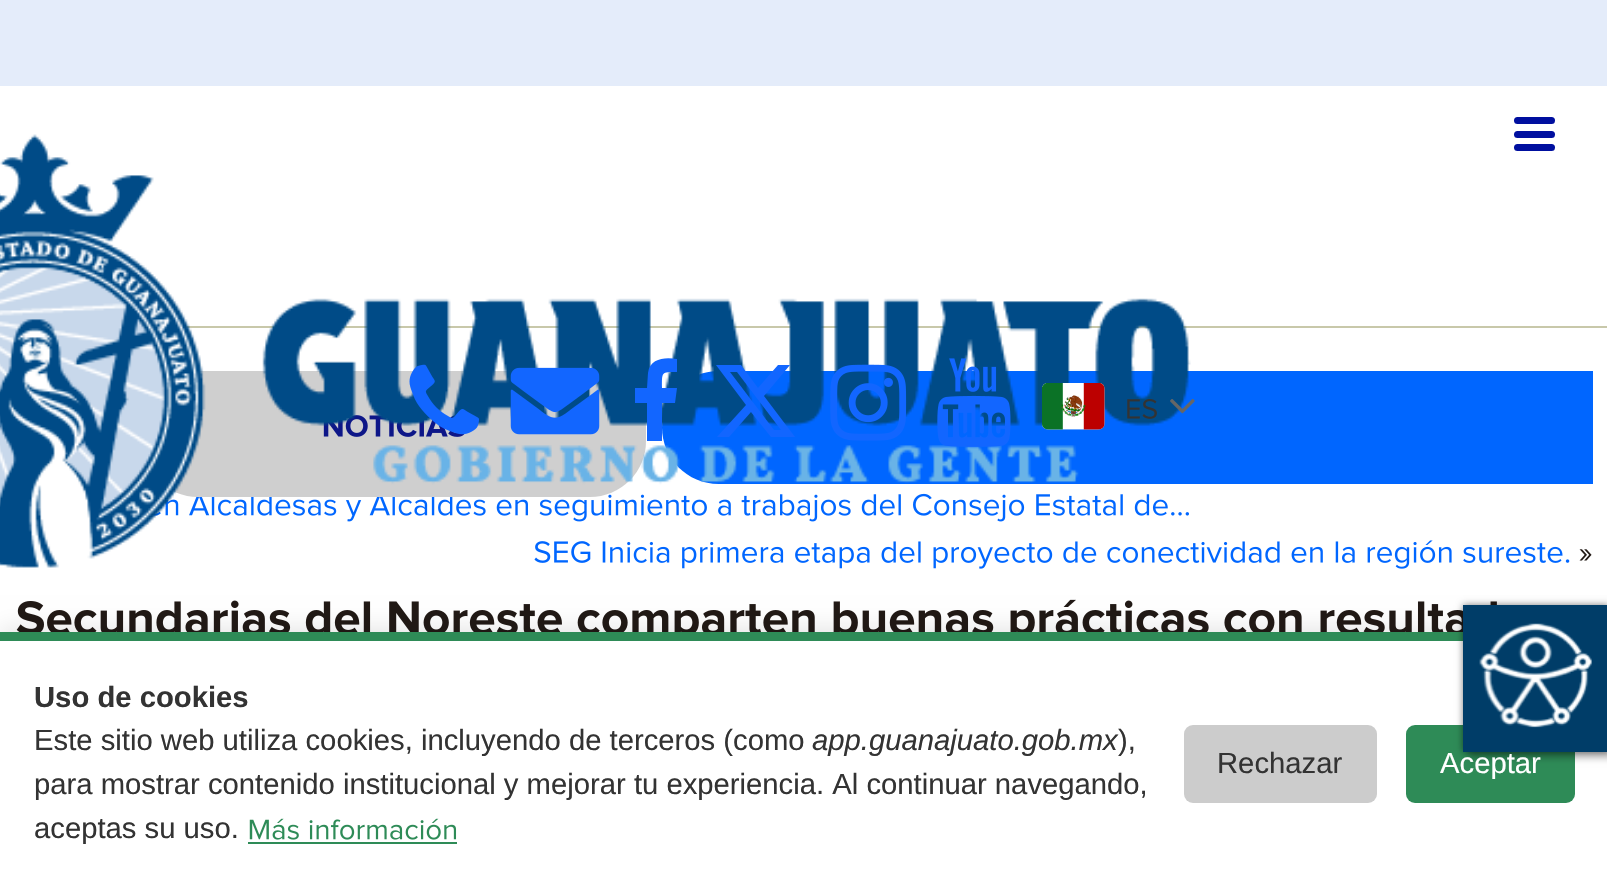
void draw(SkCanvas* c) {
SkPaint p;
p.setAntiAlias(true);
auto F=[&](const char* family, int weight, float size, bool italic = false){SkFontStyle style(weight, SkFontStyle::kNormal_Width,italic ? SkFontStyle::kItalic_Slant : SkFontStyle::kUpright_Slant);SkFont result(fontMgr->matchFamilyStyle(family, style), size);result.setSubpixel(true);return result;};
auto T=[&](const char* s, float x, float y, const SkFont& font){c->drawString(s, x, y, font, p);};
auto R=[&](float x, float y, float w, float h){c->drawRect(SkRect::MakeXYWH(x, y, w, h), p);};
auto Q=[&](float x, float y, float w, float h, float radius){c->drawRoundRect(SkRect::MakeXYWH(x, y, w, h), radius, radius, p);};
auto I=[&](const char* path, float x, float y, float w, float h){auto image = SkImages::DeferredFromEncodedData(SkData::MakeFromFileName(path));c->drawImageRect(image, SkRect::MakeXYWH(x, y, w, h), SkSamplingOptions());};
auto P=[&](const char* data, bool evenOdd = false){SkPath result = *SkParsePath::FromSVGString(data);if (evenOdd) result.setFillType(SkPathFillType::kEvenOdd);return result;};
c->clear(0xffffffff);
I("14.png",16,599,1481,33);
p.setColor(0x1a000000);
p.setMaskFilter(SkMaskFilter::MakeBlur(kNormal_SkBlurStyle, 11));
c->drawRect(SkRect::MakeXYWH(0,628,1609,254),p);
p.setMaskFilter(nullptr);
p.setColor(0xffffffff);
R(0,641,1607,244);
p.setColor(0xff2e8b57);
R(0,632,1463,9);
Q(1406,725,169,78,9);
p.setColor(0x40000000);
p.setMaskFilter(SkMaskFilter::MakeBlur(kNormal_SkBlurStyle, 3.5));
c->drawRect(SkRect::MakeXYWH(1469,612,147,146),p);
p.setMaskFilter(nullptr);
p.setColor(0x80000000);
p.setMaskFilter(SkMaskFilter::MakeBlur(kNormal_SkBlurStyle, 3.5));
c->drawRect(SkRect::MakeXYWH(1463,605,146,147),p);
p.setMaskFilter(nullptr);
p.setColor(0xff003d68);
R(1463,605,144,147);
I("1.png",1479,623,113,105);
p.setColor(0xffe4ecfa);
R(0,0,1607,86);
p.setColor(0xffc8c8aa);
R(139,326,1468,2);
I("11.png",100,493,1089,29);
p.setColor(0xffcfcfcf);
Q(142,371,504,126,56);
I("10.png",323,415,142,22);
p.setColor(0xff0066ff);
c->drawPath(P("M718.5 371h874.5v113h-874.5c-31 0-56.5-25.5-56.5-56.5c0-31 25.5-56.5 56.5-56.5z"),p);
I("12.png",534,540,1036,29);
I("2.png",0,134,1191,434);
I("3.png",409,364,70,71);
I("4.png",510,367,90,68);
p.setColor(0xff1266ff);
c->drawPath(P("M677 359v13c-16 0-15 0-15 16h15l-2 15h-13v38h-15v-38h-12v-15h12l1-15c2-15 17-16 29-14z"),p);
c->drawPath(P("M778 365h12l-26 31l31 41h-24l-20-25l-22 25h-12l29-32l-30-40h25l17 23zm-4 65h7l-44-58h-7z"),p);
I("5.png",830,364,77,77);
I("6.png",937,358,74,89);
I("7.png",1042,383,63,47);
I("8.png",1127,399,30,20);
I("9.png",1170,399,25,15);
p.setColor(0xff000f9f);
Q(1514,117,41,7,3.5);
Q(1514,131,41,7,3.5);
Q(1514,144,41,7,3.5);
I("13.png",1579,549,13,12);
auto f1 = F("Liberation Sans",700,29.25);
p.setColor(0xff333333);
T("Uso de cookies",34,707,f1);
auto f2 = F("Liberation Sans",400,29.25);
T("Este sitio web utiliza cookies, incluyendo de terceros (como",34,750,f2);
auto f3 = F("Liberation Sans",400,29.25,true);
T("app.guanajuato.gob.mx",812,750,f3);
T("),",1118,750,f2);
T("para mostrar contenido institucional y mejorar tu experiencia. Al continuar navegando,",34,794,f2);
T("aceptas su uso.",34,838,f2);
I("15.png",249,818,208,22);
p.setColor(0xff2e8b57);
R(248,842,209,2);
p.setColor(0xffcccccc);
Q(1184,725,193,78,9);
p.setColor(0xff333333);
T("Rechazar",1217,773,f2);
p.setColor(0xffffffff);
T("Aceptar",1440,773,f2);
}
